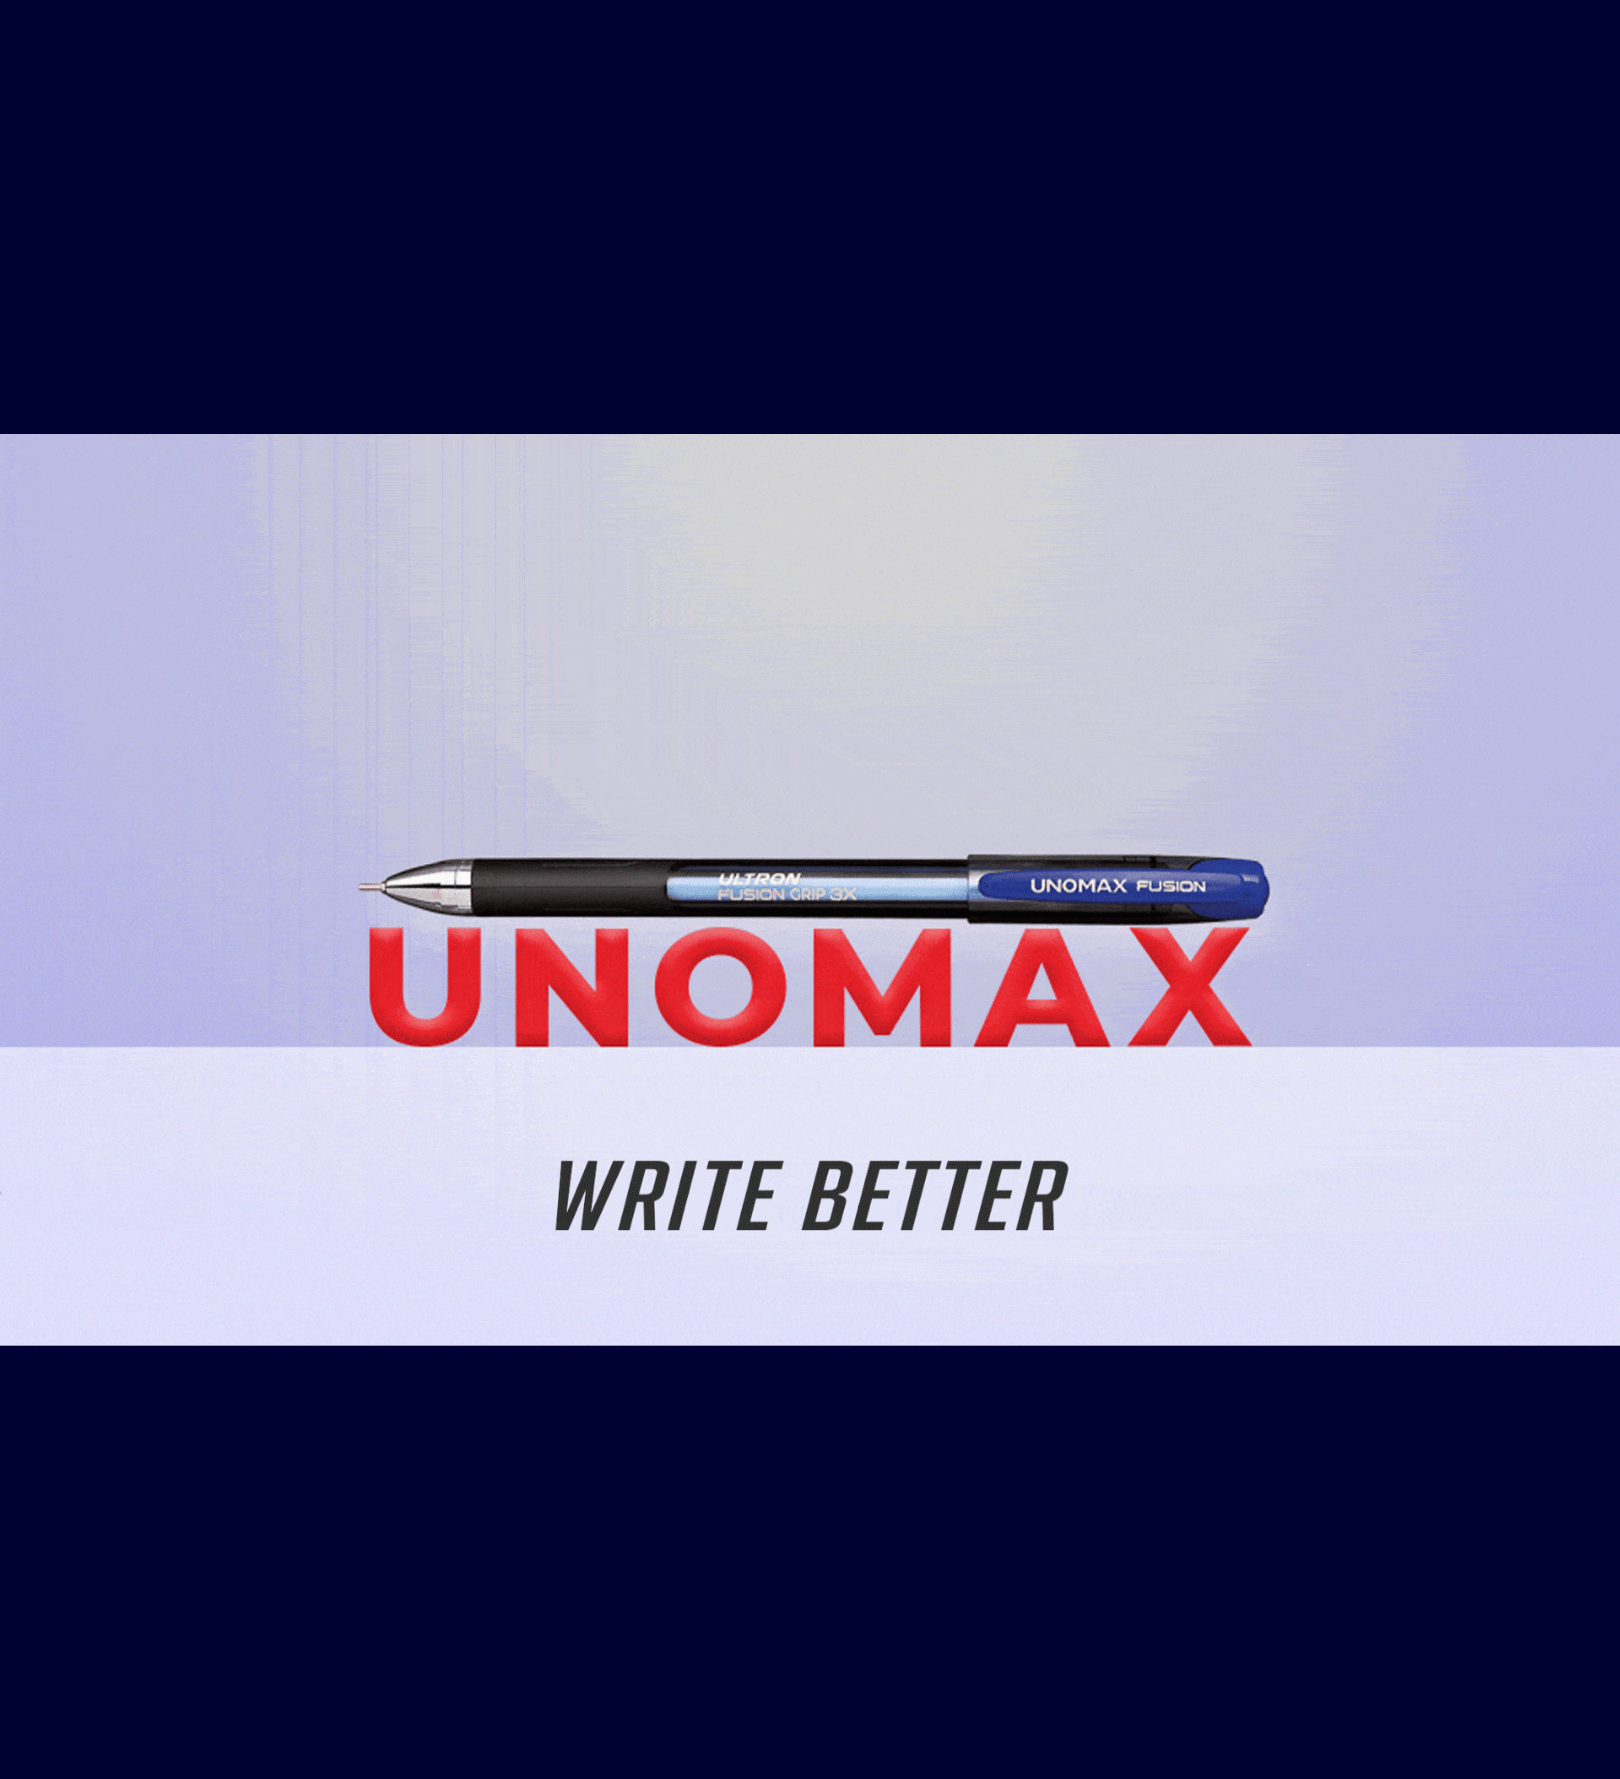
void draw(SkCanvas* c) {
SkPaint p;
p.setAntiAlias(true);
auto I=[&](const char* path, float x, float y, float w, float h){auto image = SkImages::DeferredFromEncodedData(SkData::MakeFromFileName(path));c->drawImageRect(image, SkRect::MakeXYWH(x, y, w, h), SkSamplingOptions());};
c->clear(0xff000233);
I("1.png",0,434,1620,912);
}
